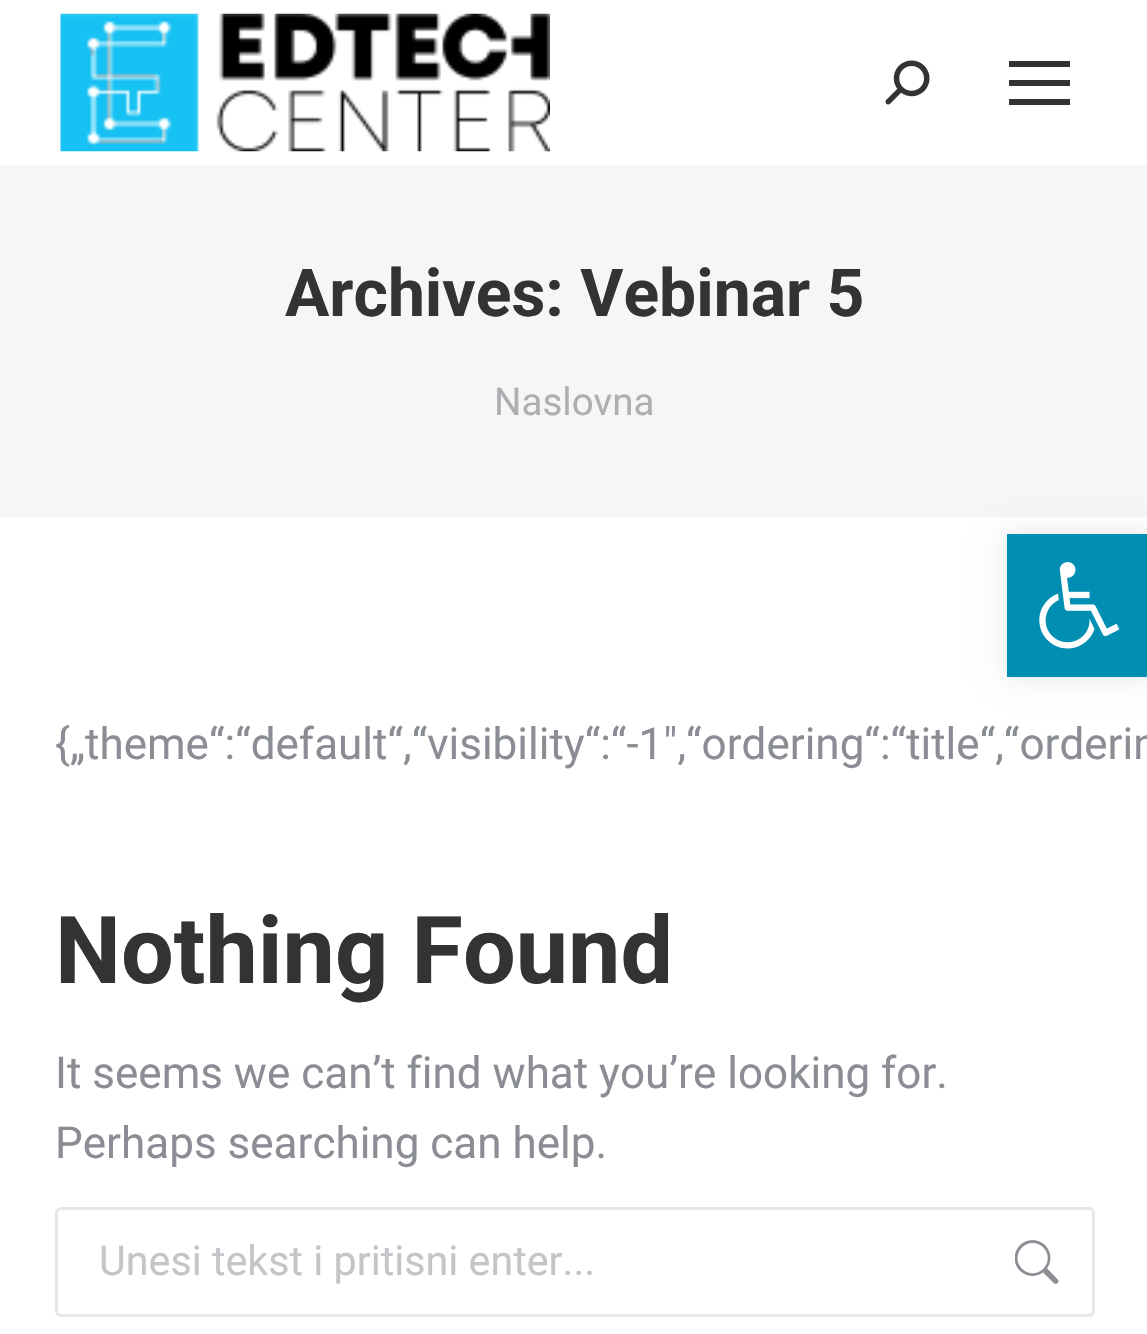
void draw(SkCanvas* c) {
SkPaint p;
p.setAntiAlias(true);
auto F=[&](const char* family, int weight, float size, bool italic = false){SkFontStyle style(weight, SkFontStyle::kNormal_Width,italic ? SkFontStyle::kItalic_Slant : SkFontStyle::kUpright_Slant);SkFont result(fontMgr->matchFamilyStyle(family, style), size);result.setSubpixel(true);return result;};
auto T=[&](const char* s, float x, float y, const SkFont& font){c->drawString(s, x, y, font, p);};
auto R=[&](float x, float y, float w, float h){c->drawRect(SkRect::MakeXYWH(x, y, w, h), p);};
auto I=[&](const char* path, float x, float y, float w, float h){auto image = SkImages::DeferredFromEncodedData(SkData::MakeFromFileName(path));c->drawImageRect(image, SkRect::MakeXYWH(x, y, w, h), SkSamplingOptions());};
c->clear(0xffffffff);
I("1.png",60,13,490,139);
I("2.png",885,60,45,45);
p.setColor(0xff333333);
R(1009,61,61,6);
R(1009,80,61,6);
R(1009,99,61,6);
p.setColor(0xfff6f6f6);
R(0,165,1147,352);
auto f1 = F("Roboto",700,66);
p.setColor(0xff333333);
T("Archives: Vebinar 5",285,316,f1);
auto f2 = F("Roboto",400,38.5);
p.setColor(0xffadafb3);
T("Naslovna",494,415,f2);
auto f3 = F("Roboto",400,44);
p.setColor(0xff8b8d94);
T("{„theme“:“default“,“visibility“:“-1″,“ordering“:“title“,“orderin",55,759,f3);
auto f4 = F("Roboto",700,93.5);
p.setColor(0xff333333);
T("Nothing Found",55,983,f4);
p.setColor(0xff8b8d94);
T("It seems we can’t find what you’re looking for.",55,1088,f3);
T("Perhaps searching can help.",55,1158,f3);
p.setStroke(true);
p.setStrokeWidth(3);
p.setColor(0xffe7e7e7);
c->drawRoundRect(SkRect::MakeXYWH(56.5,1208.5,1037,107),4.5,4.5,p);
auto f5 = F("Roboto",400,41.25);
p.setStroke(false);
p.setColor(0xffc4c5c9);
T("Unesi tekst i pritisni enter...",99,1275,f5);
I("3.png",1015,1240,44,44);
p.setColor(0x1a000000);
p.setMaskFilter(SkMaskFilter::MakeBlur(kNormal_SkBlurStyle, 14));
c->drawRect(SkRect::MakeXYWH(1007,534,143,143),p);
p.setMaskFilter(nullptr);
p.setColor(0xff008fb3);
R(1007,534,140,143);
I("4.png",1039,562,81,87);
}
